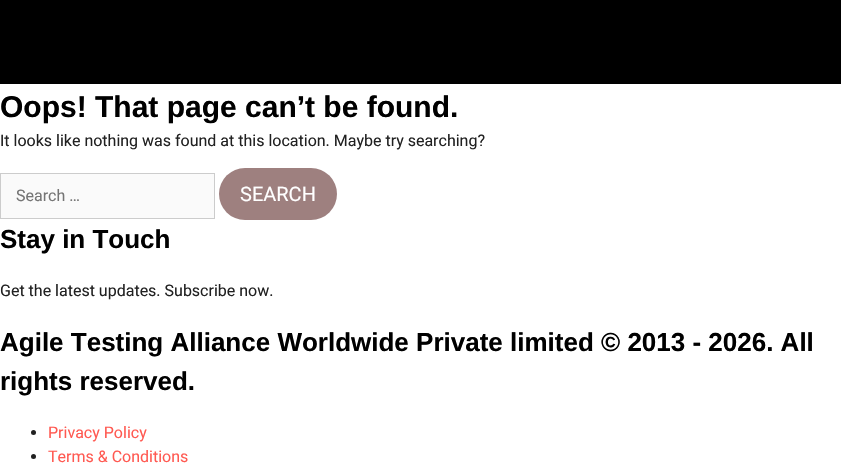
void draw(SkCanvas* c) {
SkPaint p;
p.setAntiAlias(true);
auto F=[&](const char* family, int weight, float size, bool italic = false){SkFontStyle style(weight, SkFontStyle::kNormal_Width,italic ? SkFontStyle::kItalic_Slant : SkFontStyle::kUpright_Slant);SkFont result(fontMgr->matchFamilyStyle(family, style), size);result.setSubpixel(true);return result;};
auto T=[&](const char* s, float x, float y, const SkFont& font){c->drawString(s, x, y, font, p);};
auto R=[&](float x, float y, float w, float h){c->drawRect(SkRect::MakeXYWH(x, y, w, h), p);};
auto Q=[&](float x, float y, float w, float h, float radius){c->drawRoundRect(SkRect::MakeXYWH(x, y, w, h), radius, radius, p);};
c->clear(0xffffffff);
p.setColor(0xff000000);
R(0,0,841,84);
auto f1 = F("Liberation Sans",700,30);
T("Oops! That page can’t be found.",0,117,f1);
auto f2 = F("Roboto",400,16);
p.setColor(0xff212121);
T("It looks like nothing was found at this location. Maybe try searching?",0,146,f2);
p.setColor(0xfffafafa);
c->drawRect(SkRect::MakeXYWH(.5,173.5,214,45),p);
p.setStroke(true);
p.setStrokeWidth(1);
p.setColor(0xffcccccc);
c->drawRect(SkRect::MakeXYWH(.5,173.5,214,45),p);
p.setStroke(false);
p.setColor(0xff757575);
T("Search …",16,201,f2);
p.setColor(0xff9e807f);
Q(219,168,118,52,26);
auto f3 = F("Roboto",400,20);
p.setColor(0xffffffff);
T("SEARCH",240,201,f3);
auto f4 = F("Liberation Sans",700,26);
p.setColor(0xff000000);
T("Stay in Touch",0,248,f4);
p.setColor(0xff212121);
T("Get the latest updates. Subscribe now.",0,296,f2);
p.setColor(0xff000000);
T("Agile Testing Alliance Worldwide Private limited © 2013 - 2026. All",0,351,f4);
T("rights reserved.",0,390,f4);
p.setColor(0xff212121);
c->drawCircle(33.5,432.5,2.5,p);
p.setColor(0xffff5951);
T("Privacy Policy",48,438,f2);
p.setColor(0xff212121);
c->drawCircle(33.5,456.5,2.5,p);
p.setColor(0xffff5951);
T("Terms & Conditions",48,462,f2);
}
